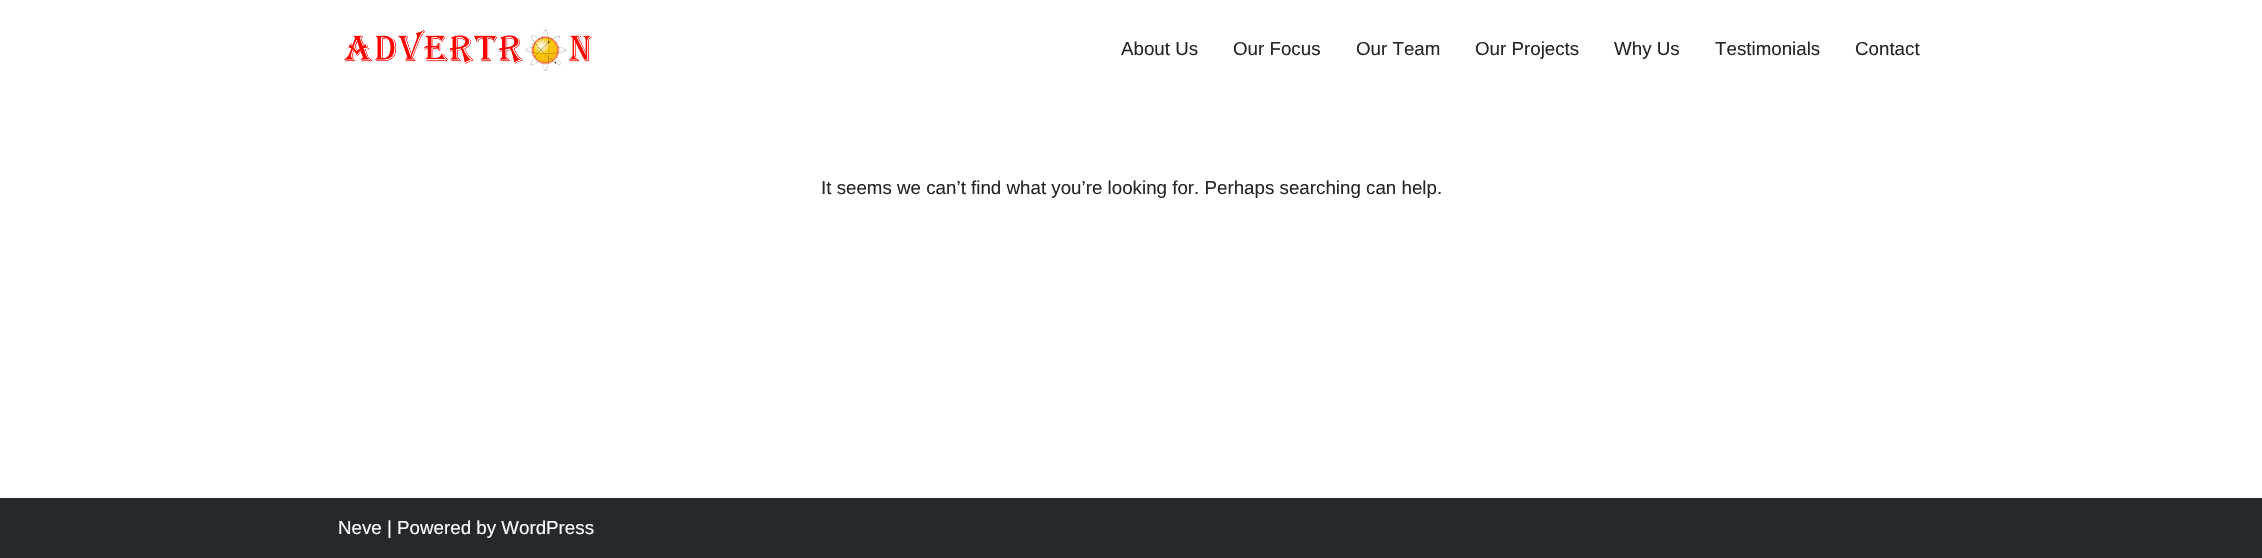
void draw(SkCanvas* c) {
SkPaint p;
p.setAntiAlias(true);
auto F=[&](const char* family, int weight, float size, bool italic = false){SkFontStyle style(weight, SkFontStyle::kNormal_Width,italic ? SkFontStyle::kItalic_Slant : SkFontStyle::kUpright_Slant);SkFont result(fontMgr->matchFamilyStyle(family, style), size);result.setSubpixel(true);return result;};
auto T=[&](const char* s, float x, float y, const SkFont& font){c->drawString(s, x, y, font, p);};
auto R=[&](float x, float y, float w, float h){c->drawRect(SkRect::MakeXYWH(x, y, w, h), p);};
auto I=[&](const char* path, float x, float y, float w, float h){auto image = SkImages::DeferredFromEncodedData(SkData::MakeFromFileName(path));c->drawImageRect(image, SkRect::MakeXYWH(x, y, w, h), SkSamplingOptions());};
c->clear(0xffffffff);
I("1.png",344,29,248,42);
auto f1 = F("Liberation Sans",400,18.75);
p.setColor(0xff272626);
T("About Us",1121,55,f1);
T("Our Focus",1233,55,f1);
T("Our Team",1356,55,f1);
T("Our Projects",1475,55,f1);
T("Why Us",1614,55,f1);
T("Testimonials",1715,55,f1);
T("Contact",1855,55,f1);
T("It seems we can’t find what you’re looking for. Perhaps searching can help.",821,194,f1);
p.setColor(0xff24292e);
R(0,498,2262,60);
p.setColor(0xffffffff);
T("Neve | Powered by WordPress",338,534,f1);
}
